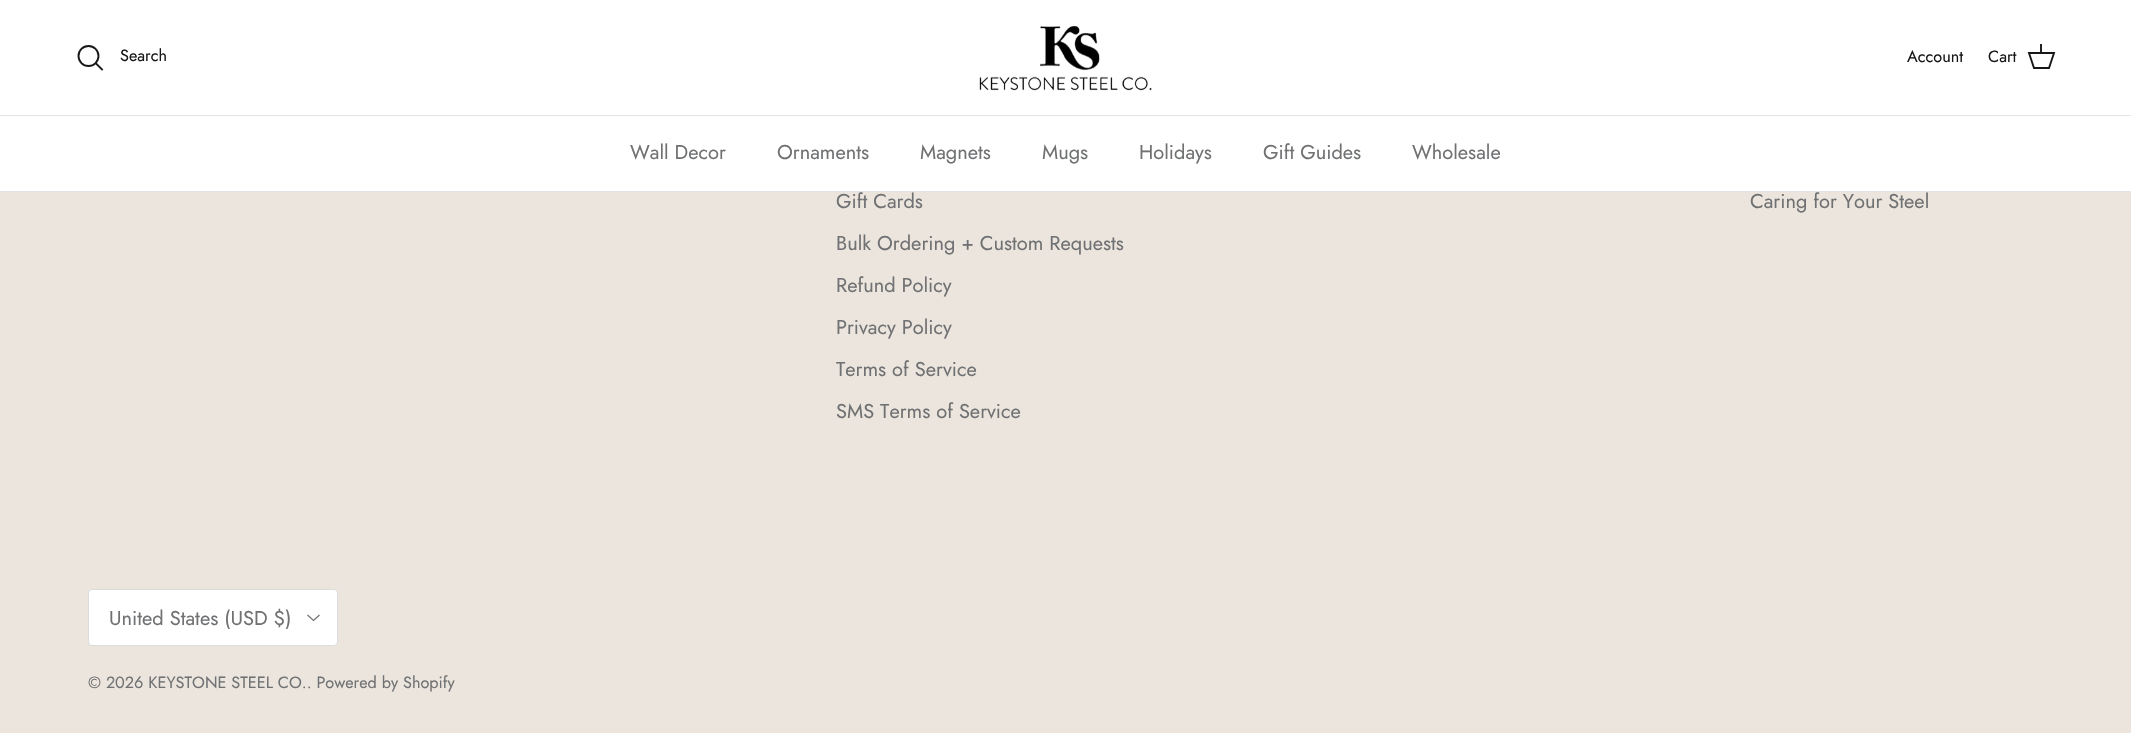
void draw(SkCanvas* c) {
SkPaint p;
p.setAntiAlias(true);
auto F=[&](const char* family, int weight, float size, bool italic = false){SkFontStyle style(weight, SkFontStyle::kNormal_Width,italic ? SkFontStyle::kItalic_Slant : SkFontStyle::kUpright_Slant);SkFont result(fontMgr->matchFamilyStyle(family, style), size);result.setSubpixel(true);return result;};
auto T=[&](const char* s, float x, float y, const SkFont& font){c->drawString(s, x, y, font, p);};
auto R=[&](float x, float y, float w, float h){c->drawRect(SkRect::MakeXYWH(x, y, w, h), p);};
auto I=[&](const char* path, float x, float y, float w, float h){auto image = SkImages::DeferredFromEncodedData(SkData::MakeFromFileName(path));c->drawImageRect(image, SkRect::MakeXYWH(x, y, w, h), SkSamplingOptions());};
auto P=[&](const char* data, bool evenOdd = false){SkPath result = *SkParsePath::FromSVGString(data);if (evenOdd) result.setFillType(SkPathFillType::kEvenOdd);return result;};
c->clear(0xffebe5dd);
p.setColor(0xffffffff);
R(0,0,2131,115);
p.setColor(0xffdfe3e8);
R(0,115,2131,1);
p.setStroke(true);
p.setStrokeWidth(1.9);
p.setColor(0xff171717);
c->drawCircle(88.5,56,10,p);
auto f1 = F("Jost",400,16.25);
p.setStroke(false);
T("Search",120,61,f1);
p.setStroke(true);
p.setStrokeCap(SkPaint::kSquare_Cap);
c->drawPath(P("M96 63.5l6 6"),p);
I("1.png",979,26,173,65);
p.setStroke(false);
T("Account",1907,62,f1);
T("Cart",1988,62,f1);
p.setStroke(true);
p.setStrokeCap(SkPaint::kButt_Cap);
c->drawPath(P("M2029 53h25l-5 15h-15z"),p);
p.setStroke(false);
p.setColor(0xf2171717);
R(2040,44,2,9);
p.setColor(0xffdfe3e8);
R(0,191,2131,1);
p.setColor(0xffffffff);
R(0,116,2131,75);
auto f2 = F("Jost",400,20);
p.setColor(0xff707173);
T("Wall Decor",630,159,f2);
T("Ornaments",777,159,f2);
T("Magnets",920,159,f2);
T("Mugs",1042,159,f2);
T("Holidays",1139,159,f2);
T("Gift Guides",1263,159,f2);
T("Wholesale",1412,159,f2);
T("Gift Cards",836,208,f2);
T("Bulk Ordering + Custom Requests",836,250,f2);
T("Refund Policy",836,292,f2);
T("Privacy Policy",836,334,f2);
T("Terms of Service",836,376,f2);
T("SMS Terms of Service",836,418,f2);
T("Caring for Your Steel",1750,208,f2);
p.setColor(0xffffffff);
c->drawRoundRect(SkRect::MakeXYWH(88.5,589.5,249,56),3.5,3.5,p);
p.setStroke(true);
p.setStrokeWidth(1);
p.setColor(0xffdbdcdc);
c->drawRoundRect(SkRect::MakeXYWH(88.5,589.5,249,56),3.5,3.5,p);
p.setStroke(false);
p.setColor(0xff707173);
T("United States (USD $)",109,625,f2);
p.setStroke(true);
p.setStrokeWidth(1.2);
c->drawPath(P("M319.5 615l-6 5.5l-6-5.5"),p);
p.setStroke(false);
T("© 2026 KEYSTONE STEEL CO.. Powered by Shopify",88,688,f1);
}
